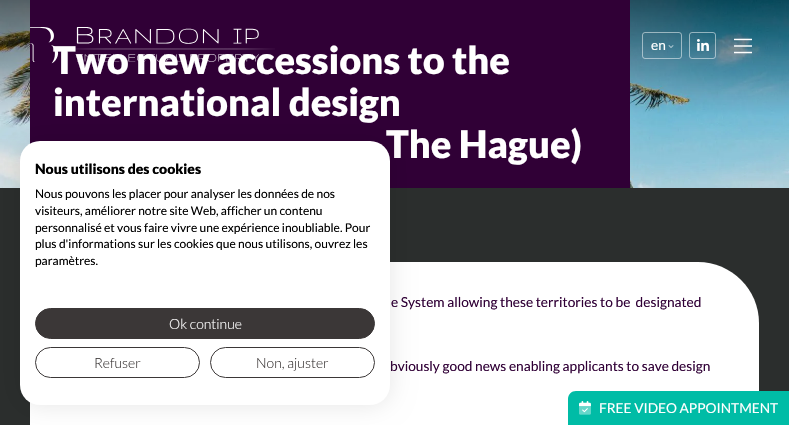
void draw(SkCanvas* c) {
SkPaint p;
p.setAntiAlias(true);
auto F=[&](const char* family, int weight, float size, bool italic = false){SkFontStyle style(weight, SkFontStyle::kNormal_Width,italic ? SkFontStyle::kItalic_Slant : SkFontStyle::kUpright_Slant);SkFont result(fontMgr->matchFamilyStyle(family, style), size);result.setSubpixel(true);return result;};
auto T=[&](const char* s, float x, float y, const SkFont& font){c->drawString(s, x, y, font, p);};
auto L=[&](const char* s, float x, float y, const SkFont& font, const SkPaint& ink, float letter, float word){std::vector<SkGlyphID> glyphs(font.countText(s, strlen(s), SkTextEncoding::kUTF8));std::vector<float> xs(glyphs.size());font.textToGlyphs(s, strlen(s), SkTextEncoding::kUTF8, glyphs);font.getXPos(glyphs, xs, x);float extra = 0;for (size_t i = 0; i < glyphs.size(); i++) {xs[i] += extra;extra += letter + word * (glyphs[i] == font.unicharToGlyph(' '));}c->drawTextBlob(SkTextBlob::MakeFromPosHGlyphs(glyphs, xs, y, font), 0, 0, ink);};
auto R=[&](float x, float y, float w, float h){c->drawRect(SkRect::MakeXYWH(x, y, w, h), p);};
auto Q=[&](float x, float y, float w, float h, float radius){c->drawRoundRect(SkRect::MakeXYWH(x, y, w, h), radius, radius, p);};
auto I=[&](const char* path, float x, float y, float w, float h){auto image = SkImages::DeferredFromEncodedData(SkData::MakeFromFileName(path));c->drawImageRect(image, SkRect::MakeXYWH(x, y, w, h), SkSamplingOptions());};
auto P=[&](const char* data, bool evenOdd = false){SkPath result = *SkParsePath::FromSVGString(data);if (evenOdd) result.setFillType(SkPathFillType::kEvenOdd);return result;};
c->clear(0xff2b2e2d);
I("1.png",0,0,789,188);
p.setColor(0xff300036);
R(30,0,600,188);
auto f1 = F("Lato",900,38);
p.setColor(0xffffffff);
T("Two new accessions to the",53,74,f1);
T("international design",53,116,f1);
T("The Hague)",386,158,f1);
I("2.png",30,27,245,37);
p.setStroke(true);
p.setStrokeWidth(1);
p.setColor(0x80ffffff);
c->drawRoundRect(SkRect::MakeXYWH(642.5,32.5,39,26),2.5,2.5,p);
auto f2 = F("Lato",400,13.7);
p.setStroke(false);
p.setColor(0xffffffff);
T("en",651,50,f2);
auto f3 = F("DejaVu Sans",400,12);
p.setColor(0xff9dbbc7);
L("⌄",666,48,f3,p,3,0);
p.setStroke(true);
p.setColor(0x80ffffff);
c->drawRoundRect(SkRect::MakeXYWH(689.5,32.5,26,26),2.5,2.5,p);
I("3.png",697,39,12,12);
I("4.png",734,38,18,16);
p.setStroke(false);
p.setColor(0xffffffff);
c->drawPath(P("M30 262h668c33.5 0 61 27.5 61 61v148c0 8.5-6.5 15-15 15h-699c-8.5 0-15-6.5-15-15z"),p);
p.setColor(0xff300036);
T("e System allowing these territories to be  designated",391,307,f2);
T("bviously good news enabling applicants to save design",390,371,f2);
p.setColor(0xff00bca6);
c->drawPath(P("M576 391h213v34h-221v-26c0-4.5 3.5-8 8-8z"),p);
I("5.png",579,401,12,14);
p.setColor(0xffffffff);
T("FREE VIDEO APPOINTMENT",599,413,f2);
p.setColor(0x1a000000);
p.setMaskFilter(SkMaskFilter::MakeBlur(kNormal_SkBlurStyle, 12));
c->drawRoundRect(SkRect::MakeXYWH(20,141,370,264),20,20,p);
p.setMaskFilter(nullptr);
p.setColor(0xffffffff);
Q(20,141,370,264,20);
auto f4 = F("Lato",900,14);
p.setColor(0xff000000);
T("Nous utilisons des cookies",35,174,f4);
auto f5 = F("Lato",400,12);
T("Nous pouvons les placer pour analyser les données de nos",35,198,f5);
T("visiteurs, améliorer notre site Web, afficher un contenu",35,215,f5);
T("personnalisé et vous faire vivre une expérience inoubliable. Pour",35,232,f5);
T("plus d'informations sur les cookies que nous utilisons, ouvrez les",35,248,f5);
T("paramètres.",35,265,f5);
p.setColor(0xff3b3737);
c->drawRoundRect(SkRect::MakeXYWH(35.5,308.5,339,30),15,15,p);
p.setStroke(true);
c->drawRoundRect(SkRect::MakeXYWH(35.5,308.5,339,30),15,15,p);
auto f6 = F("Lato",300,14);
p.setStroke(false);
p.setColor(0xffffffff);
T("Ok continue",169,329,f6);
p.setStroke(true);
p.setColor(0xff3b3737);
c->drawRoundRect(SkRect::MakeXYWH(35.5,347.5,164,30),15,15,p);
p.setStroke(false);
T("Refuser",94,368,f6);
p.setStroke(true);
c->drawRoundRect(SkRect::MakeXYWH(210.5,347.5,164,30),15,15,p);
p.setStroke(false);
T("Non, ajuster",256,368,f6);
}
